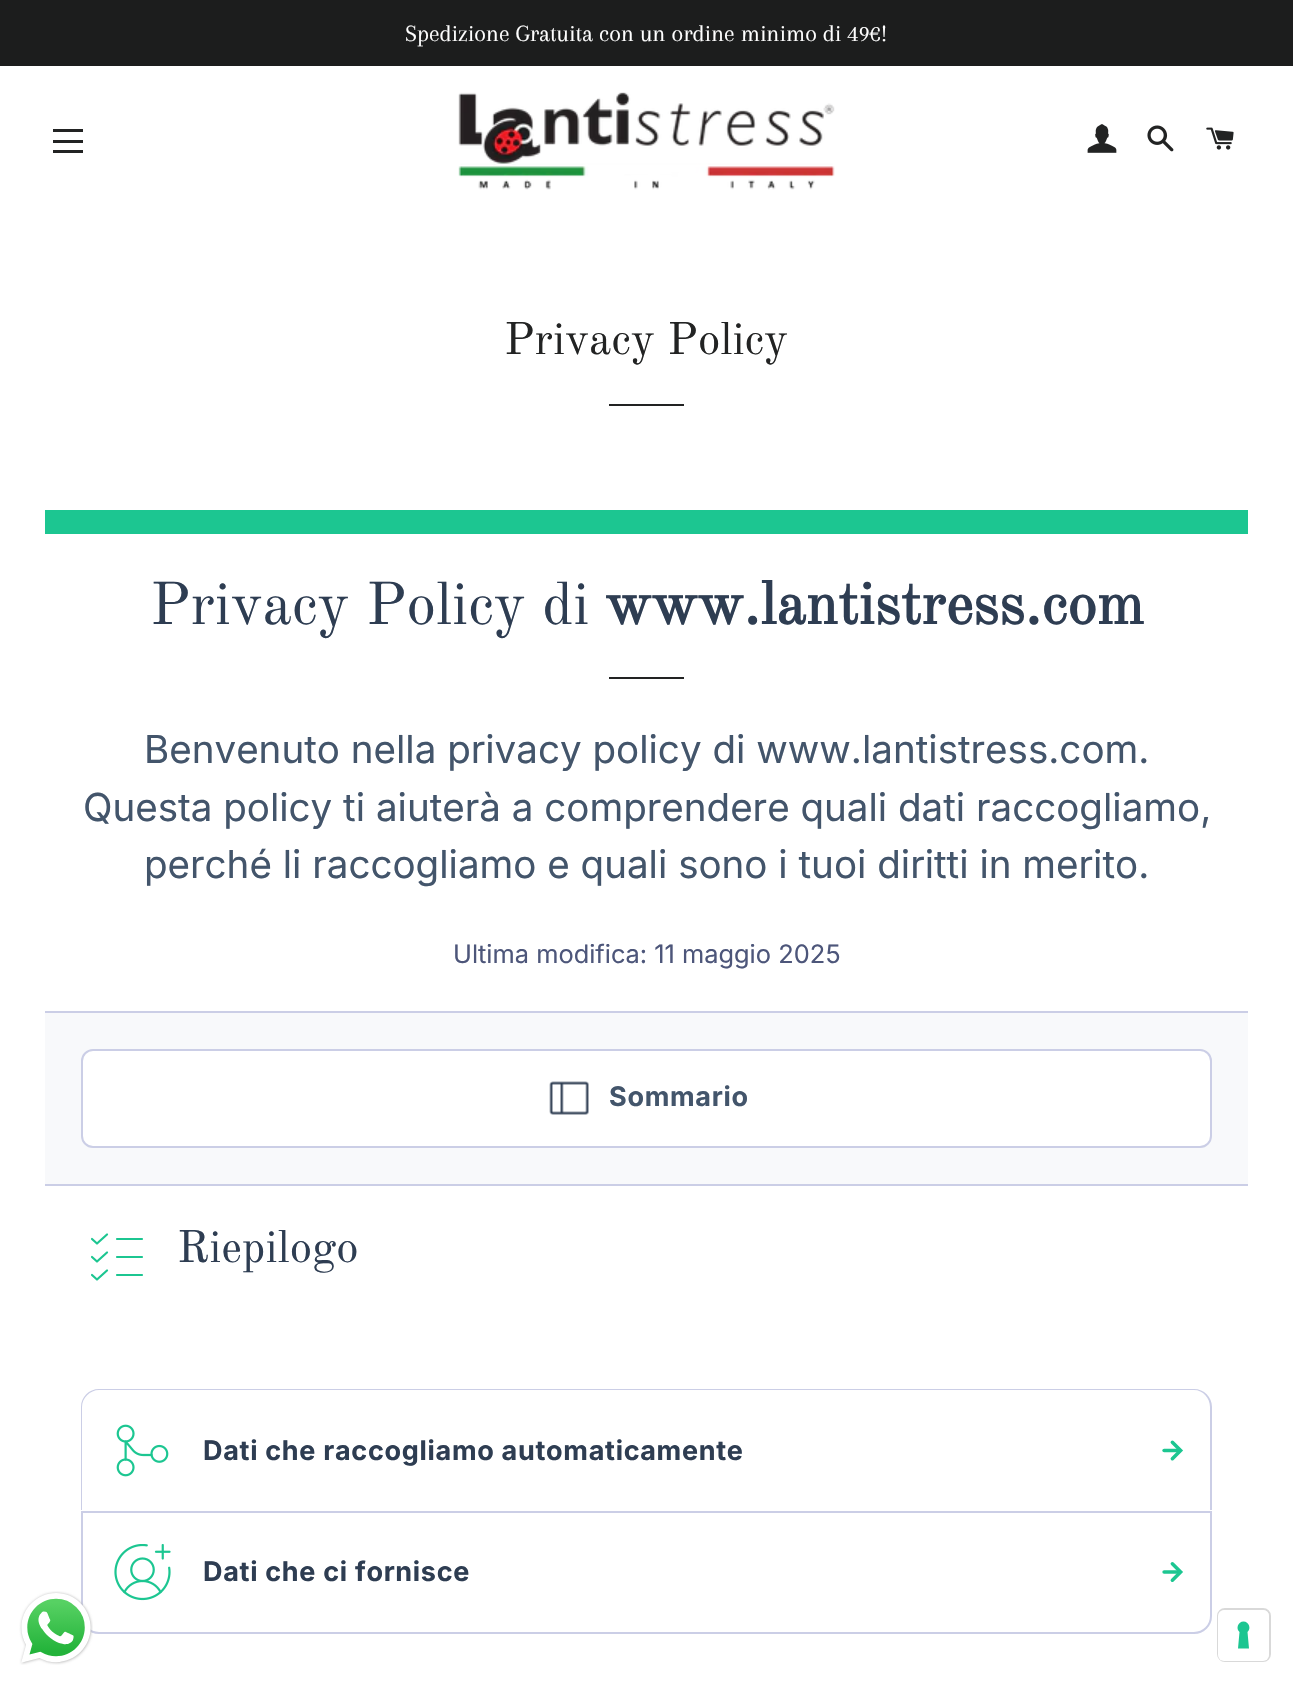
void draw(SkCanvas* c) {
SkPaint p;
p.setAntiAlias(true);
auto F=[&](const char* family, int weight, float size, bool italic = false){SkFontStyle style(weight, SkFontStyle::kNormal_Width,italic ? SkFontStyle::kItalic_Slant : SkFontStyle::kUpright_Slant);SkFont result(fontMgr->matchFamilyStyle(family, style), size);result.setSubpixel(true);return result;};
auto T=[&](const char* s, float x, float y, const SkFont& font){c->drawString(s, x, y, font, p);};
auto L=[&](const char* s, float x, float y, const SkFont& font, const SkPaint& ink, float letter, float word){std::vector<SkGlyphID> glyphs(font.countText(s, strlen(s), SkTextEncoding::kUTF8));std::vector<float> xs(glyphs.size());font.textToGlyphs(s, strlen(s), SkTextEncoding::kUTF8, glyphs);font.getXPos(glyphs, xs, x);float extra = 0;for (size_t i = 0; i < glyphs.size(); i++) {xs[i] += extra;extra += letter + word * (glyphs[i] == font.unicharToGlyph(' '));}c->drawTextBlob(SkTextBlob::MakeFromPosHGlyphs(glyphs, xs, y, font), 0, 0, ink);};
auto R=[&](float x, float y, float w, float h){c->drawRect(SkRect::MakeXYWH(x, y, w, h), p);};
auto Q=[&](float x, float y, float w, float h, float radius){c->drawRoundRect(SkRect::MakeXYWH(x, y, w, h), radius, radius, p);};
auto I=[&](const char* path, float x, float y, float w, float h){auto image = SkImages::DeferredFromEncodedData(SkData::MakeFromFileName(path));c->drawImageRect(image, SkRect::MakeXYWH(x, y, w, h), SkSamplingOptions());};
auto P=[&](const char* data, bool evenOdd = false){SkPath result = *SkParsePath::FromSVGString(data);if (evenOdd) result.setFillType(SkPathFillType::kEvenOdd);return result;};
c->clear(0xffffffff);
p.setColor(0xff1c1d1d);
R(0,0,1293,66);
auto f1 = F("Arapey",400,24);
p.setColor(0xffffffff);
T("Spedizione Gratuita con un ordine minimo di 49€!",405,41,f1);
p.setColor(0xff222323);
R(53,129,30,3);
R(53,140,30,3);
R(53,150,30,3);
I("1.png",458,92,377,98);
I("2.png",1087,124,30,29);
I("3.png",1147,125,27,27);
I("4.png",1206,127,28,23);
auto f2 = F("Old Standard TT",400,45);
T("Privacy Policy",504,354,f2);
R(609,404,75,2);
p.setColor(0xff1cc691);
R(45,510,1203,24);
p.setColor(0xffcbcee6);
R(45,1011,1203,2);
auto f3 = F("Old Standard TT",400,59.5);
p.setColor(0xff2e3d52);
T("Privacy Policy di",150,624,f3);
auto f4 = F("Old Standard TT",700,59.5);
T("www.lantistress.com",605,624,f4);
p.setColor(0xff222323);
R(609,677,75,2);
auto f5 = F("Inter",400,38.55);
p.setColor(0xff43556b);
T("Benvenuto nella privacy policy di www.lantistress.com.",144,763,f5);
T("Questa policy ti aiuterà a comprendere quali dati raccogliamo,",83,821,f5);
T("perché li raccogliamo e quali sono i tuoi diritti in merito.",144,878,f5);
auto f6 = F("Inter",400,25.4);
p.setColor(0xff4d567a);
T("Ultima modifica: 11 maggio 2025",453,963,f6);
p.setColor(0xfff8f9fb);
R(45,1013,1203,171);
p.setColor(0xffcbcee6);
R(45,1184,1203,2);
p.setColor(0xffffffff);
c->drawRoundRect(SkRect::MakeXYWH(82,1050,1129,97),11,11,p);
p.setStroke(true);
p.setStrokeWidth(2);
p.setColor(0xffcbcee6);
c->drawRoundRect(SkRect::MakeXYWH(82,1050,1129,97),11,11,p);
I("5.png",549,1081,40,34);
auto f7 = F("Inter",700,27);
p.setStroke(false);
p.setColor(0xff43556b);
L("Sommario",609,1106,f7,p,.7,0);
p.setStroke(true);
p.setStrokeWidth(2.2);
p.setStrokeCap(SkPaint::kRound_Cap);
p.setStrokeJoin(SkPaint::kRound_Join);
p.setColor(0xff1cc691);
c->drawPath(P("M117 1257h25m-25-18h25m-25 36h25m-35-40.5l-10 9l-5-4.5m15 13.5l-10 9l-5-4.5m15 13.5l-10 9l-5-4.5"),p);
p.setStroke(false);
p.setColor(0xff2e3d52);
T("Riepilogo",177,1262,f2);
p.setColor(0xffcbcee6);
c->drawPath(P("M99 1389h1095c10 0 18 8 18 18v103h-1131v-103c0-10 8-18 18-18zm0 1h1095c9 0 16 8 16 17v103h-1128v-103c0-9 8-17 17-17z",true),p);
I("6.png",116,1424,53,53);
p.setColor(0xff2e3d52);
L("Dati che raccogliamo automaticamente",203,1460,f7,p,.7,0);
I("7.png",1162,1440,21,21);
p.setStroke(true);
p.setStrokeWidth(2);
p.setStrokeCap(SkPaint::kButt_Cap);
p.setStrokeJoin(SkPaint::kMiter_Join);
p.setColor(0xffcbcee6);
c->drawPath(P("M82 1512h1129v104c0 9.5-7.5 17-17 17h-1095c-9.5 0-17-7.5-17-17z"),p);
I("8.png",114,1544,57,57);
p.setStroke(false);
p.setColor(0xff2e3d52);
L("Dati che ci fornisce",203,1581,f7,p,.7,0);
I("9.png",1162,1562,21,20);
I("10.png",19,1591,74,74);
p.setStroke(true);
p.setColor(0xffd9d9d9);
c->drawRoundRect(SkRect::MakeXYWH(1218,1609,52,52),7,7,p);
p.setStroke(false);
p.setColor(0xffffffff);
Q(1218,1610,51,51,6);
p.setColor(0xff1cc691);
c->drawPath(P("M1243.5 1621.5c5.5 0 8 7 4 10.5l1.5 16.5h-11l1.5-16.5c-4-3.5-1.5-10.5 4-10.5z",true),p);
}
